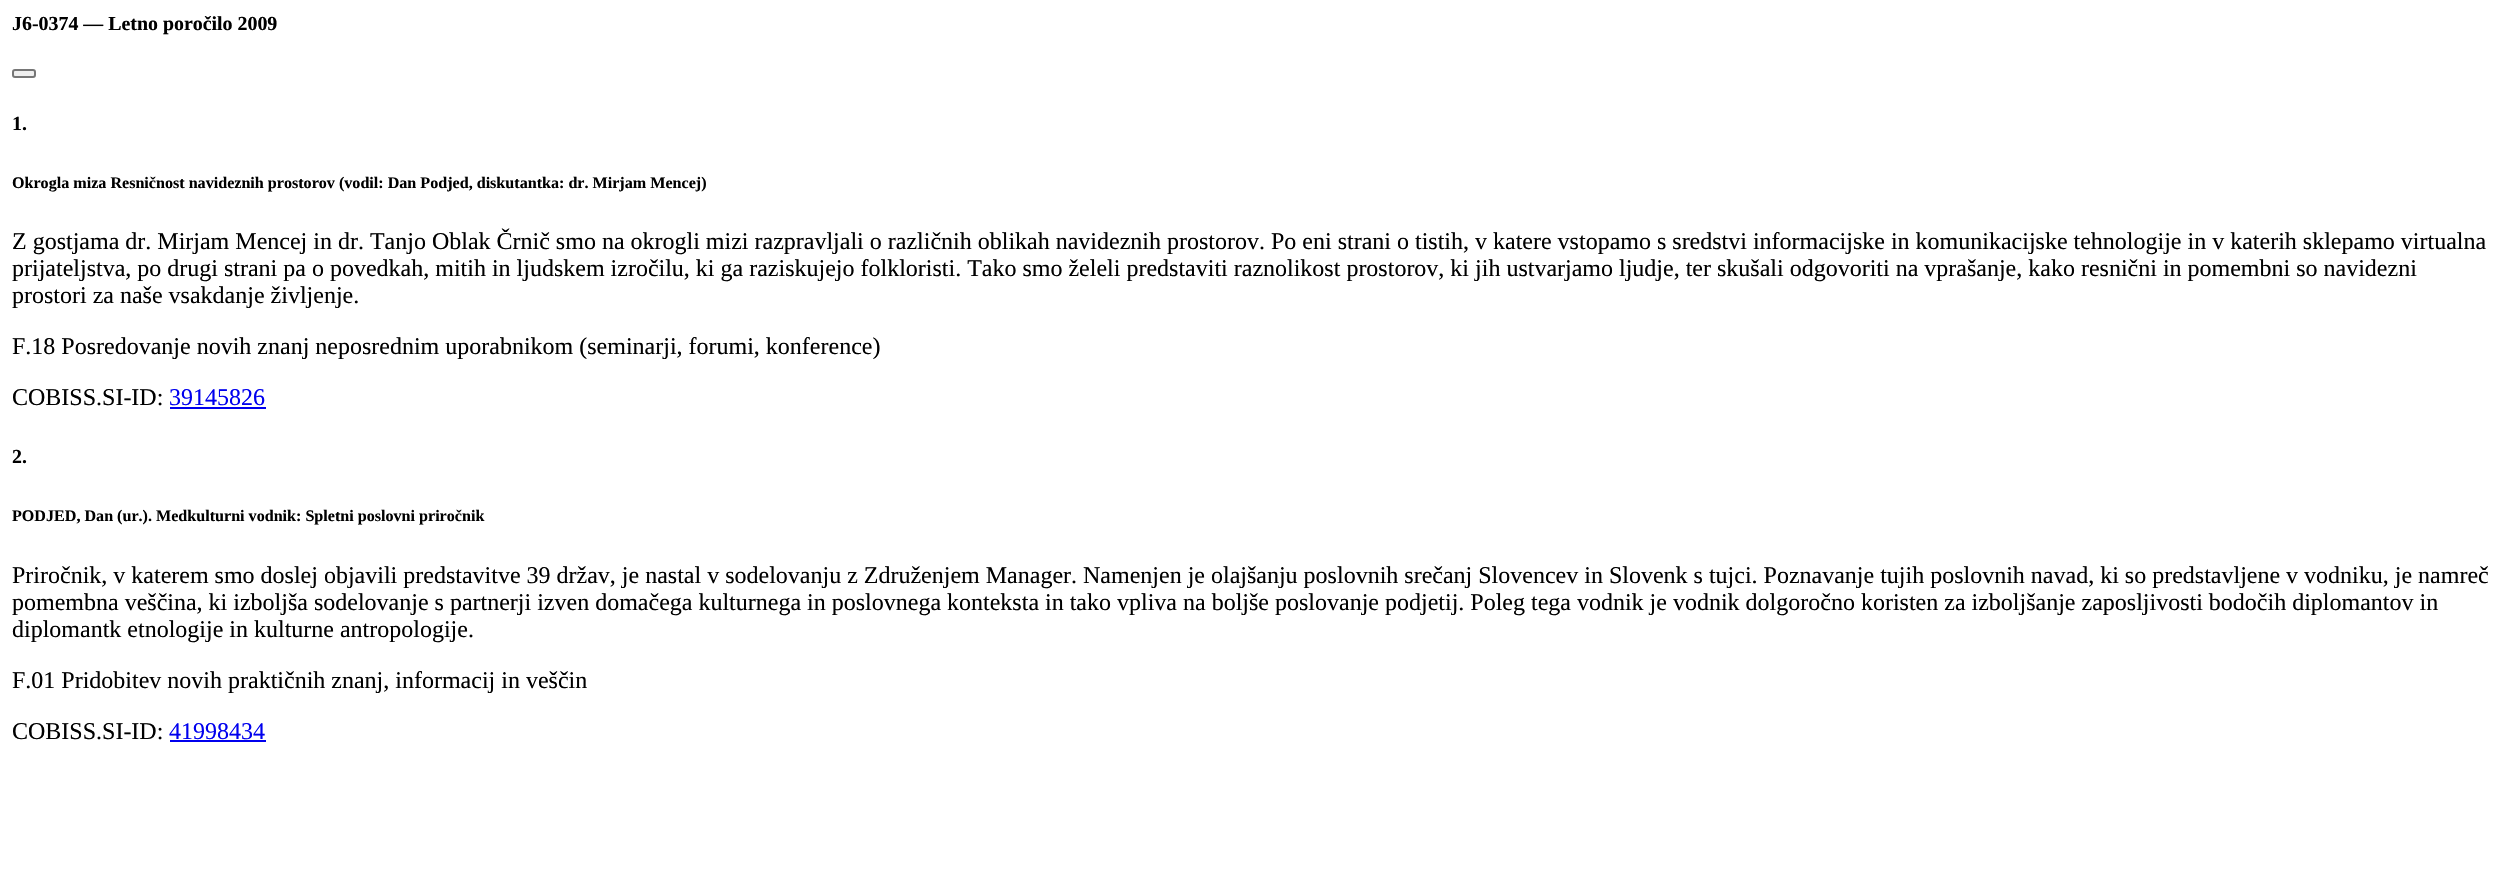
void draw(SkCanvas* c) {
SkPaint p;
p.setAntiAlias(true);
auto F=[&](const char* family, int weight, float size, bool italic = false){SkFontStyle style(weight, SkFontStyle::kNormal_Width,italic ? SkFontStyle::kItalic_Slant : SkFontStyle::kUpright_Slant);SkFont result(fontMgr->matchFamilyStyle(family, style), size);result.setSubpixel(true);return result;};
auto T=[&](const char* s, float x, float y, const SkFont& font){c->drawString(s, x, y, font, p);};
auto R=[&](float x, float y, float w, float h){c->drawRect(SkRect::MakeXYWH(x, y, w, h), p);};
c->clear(0xffffffff);
auto f1 = F("Liberation Serif",700,19.9);
p.setColor(0xff000000);
T("J6-0374 — Letno poročilo 2009",12,30,f1);
p.setColor(0xffefefef);
c->drawRoundRect(SkRect::MakeXYWH(13,70,22,7),2,2,p);
p.setStroke(true);
p.setStrokeWidth(2);
p.setColor(0xff767676);
c->drawRoundRect(SkRect::MakeXYWH(13,70,22,7),2,2,p);
p.setStroke(false);
p.setColor(0xff000000);
T("1.",12,130,f1);
auto f2 = F("Liberation Serif",700,16.1);
T("Okrogla miza Resničnost navideznih prostorov (vodil: Dan Podjed, diskutantka: dr. Mirjam Mencej)",12,188,f2);
auto f3 = F("Liberation Serif",400,24);
T("Z gostjama dr. Mirjam Mencej in dr. Tanjo Oblak Črnič smo na okrogli mizi razpravljali o različnih oblikah navideznih prostorov. Po eni strani o tistih, v katere vstopamo s sredstvi informacijske in komunikacijske tehnologije in v katerih sklepamo virtualna",12,249,f3);
T("prijateljstva, po drugi strani pa o povedkah, mitih in ljudskem izročilu, ki ga raziskujejo folkloristi. Tako smo želeli predstaviti raznolikost prostorov, ki jih ustvarjamo ljudje, ter skušali odgovoriti na vprašanje, kako resnični in pomembni so navidezni",12,276,f3);
T("prostori za naše vsakdanje življenje.",12,303,f3);
T("F.18 Posredovanje novih znanj neposrednim uporabnikom (seminarji, forumi, konference)",12,354,f3);
T("COBISS.SI-ID:",12,405,f3);
p.setColor(0xff0000ee);
T("39145826",169,405,f3);
R(170,407,96,2);
p.setColor(0xff000000);
T("2.",12,463,f1);
T("PODJED, Dan (ur.). Medkulturni vodnik: Spletni poslovni priročnik",12,521,f2);
T("Priročnik, v katerem smo doslej objavili predstavitve 39 držav, je nastal v sodelovanju z Združenjem Manager. Namenjen je olajšanju poslovnih srečanj Slovencev in Slovenk s tujci. Poznavanje tujih poslovnih navad, ki so predstavljene v vodniku, je namreč",12,583,f3);
T("pomembna veščina, ki izboljša sodelovanje s partnerji izven domačega kulturnega in poslovnega konteksta in tako vpliva na boljše poslovanje podjetij. Poleg tega vodnik je vodnik dolgoročno koristen za izboljšanje zaposljivosti bodočih diplomantov in",12,610,f3);
T("diplomantk etnologije in kulturne antropologije.",12,637,f3);
T("F.01 Pridobitev novih praktičnih znanj, informacij in veščin",12,688,f3);
T("COBISS.SI-ID:",12,739,f3);
p.setColor(0xff0000ee);
T("41998434",169,739,f3);
R(170,740,96,2);
}
